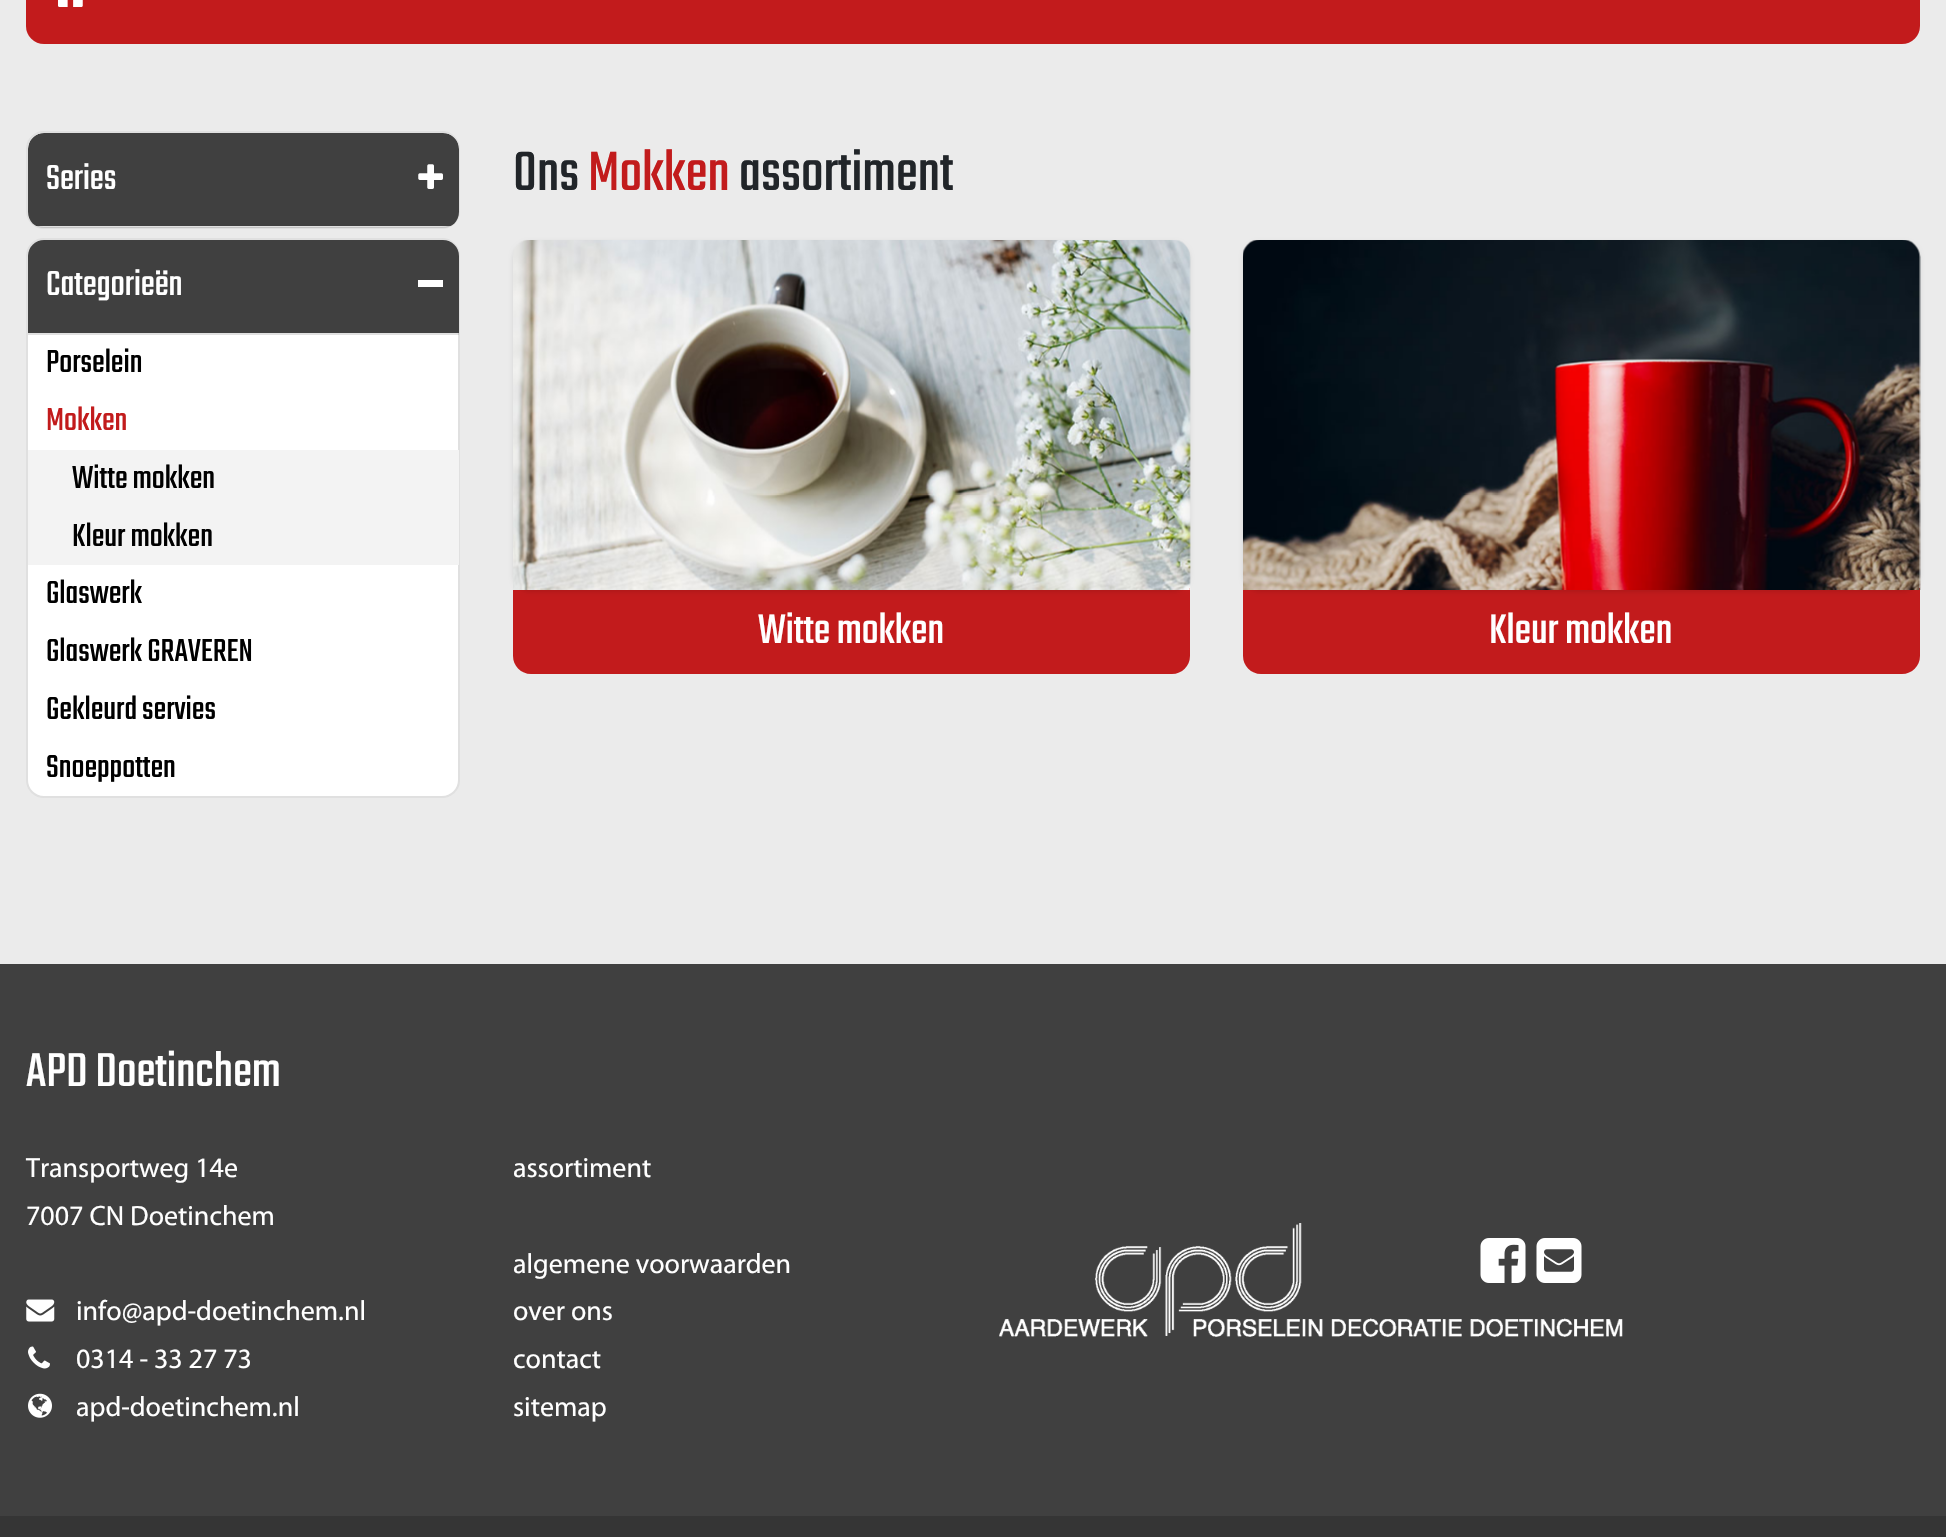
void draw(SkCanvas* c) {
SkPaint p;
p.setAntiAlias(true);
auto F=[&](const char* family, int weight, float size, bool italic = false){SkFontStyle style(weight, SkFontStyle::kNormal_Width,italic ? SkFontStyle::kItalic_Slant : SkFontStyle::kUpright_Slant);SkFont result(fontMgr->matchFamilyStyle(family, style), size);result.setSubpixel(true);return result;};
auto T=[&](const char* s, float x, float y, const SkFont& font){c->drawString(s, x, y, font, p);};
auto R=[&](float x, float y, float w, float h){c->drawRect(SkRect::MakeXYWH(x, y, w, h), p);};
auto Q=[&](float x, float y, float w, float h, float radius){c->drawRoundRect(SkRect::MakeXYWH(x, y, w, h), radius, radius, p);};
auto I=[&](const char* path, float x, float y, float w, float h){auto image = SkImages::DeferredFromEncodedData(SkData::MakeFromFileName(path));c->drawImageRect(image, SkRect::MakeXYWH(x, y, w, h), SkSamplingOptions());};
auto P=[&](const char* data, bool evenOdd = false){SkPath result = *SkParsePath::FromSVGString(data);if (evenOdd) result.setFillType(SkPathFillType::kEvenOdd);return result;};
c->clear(0xffebebeb);
p.setColor(0xffc21b1c);
Q(26,-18,1894,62,18);
I("1.png",58,0,25,7);
p.setColor(0xffffffff);
Q(26,131,434,98,18);
p.setStroke(true);
p.setStrokeWidth(2);
p.setColor(0x1f000000);
c->drawRoundRect(SkRect::MakeXYWH(27,132,432,96),17,17,p);
c->save();
c->clipPath(P("M44 133h399c9 0 16 7 16 16v63c0 9-7 16-16 16h-399c-9 0-16-7-16-16v-63c0-9 7-16 16-16z"),true);
p.setStroke(false);
R(37,226,413,2);
p.setColor(0xff404040);
c->drawPath(P("M44 133h399c9 0 16 7 16 16v77h-431v-77c0-9 7-16 16-16z"),p);
c->restore();
auto f1 = F("Teko",300,38.5);
p.setColor(0xffffffff);
T("Series",46,189,f1);
I("2.png",418,164,25,25);
Q(26,238,434,560,18);
p.setStroke(true);
p.setColor(0x1f000000);
c->drawRoundRect(SkRect::MakeXYWH(27,239,432,558),17,17,p);
p.setStroke(false);
R(28,333,431,2);
p.setColor(0xff404040);
c->drawPath(P("M44 240h399c9 0 16 7 16 16v77h-431v-77c0-9 7-16 16-16z"),p);
p.setColor(0xffffffff);
T("Categorieën",46,295,f1);
R(418,280,25,7);
auto f2 = F("Teko",300,35);
p.setColor(0xff000000);
T("Porselein",46,372,f2);
p.setColor(0xffc21b1c);
T("Mokken",46,430,f2);
p.setColor(0xfff3f3f3);
R(28,450,431,115);
p.setColor(0xff000000);
T("Witte mokken",72,488,f2);
T("Kleur mokken",72,546,f2);
T("Glaswerk",46,603,f2);
T("Glaswerk GRAVEREN",46,661,f2);
T("Gekleurd servies",46,719,f2);
T("Snoeppotten",46,777,f2);
auto f3 = F("Teko",300,61);
p.setColor(0xff212529);
T("Ons",513,190,f3);
p.setColor(0xffc21b1c);
T("Mokken",588,190,f3);
p.setColor(0xff212529);
T("assortiment",739,190,f3);
p.setColor(0xffc21b1c);
c->drawPath(P("M513 588h677v68c0 10-8 18-18 18h-641c-10 0-18-8-18-18z"),p);
p.setColor(0x1a000000);
p.setMaskFilter(SkMaskFilter::MakeBlur(kNormal_SkBlurStyle, 2));
c->drawRoundRect(SkRect::MakeXYWH(513,242,677,350),18,18,p);
p.setMaskFilter(nullptr);
I("3.png",513,240,678,350);
auto f4 = F("Teko",300,45.5);
p.setColor(0xffffffff);
T("Witte mokken",758,643,f4);
p.setColor(0xffc21b1c);
c->drawPath(P("M1243 588h677v68c0 10-8 18-18 18h-641c-10 0-18-8-18-18z"),p);
p.setColor(0x1a000000);
p.setMaskFilter(SkMaskFilter::MakeBlur(kNormal_SkBlurStyle, 2));
c->drawRoundRect(SkRect::MakeXYWH(1243,242,677,350),18,18,p);
p.setMaskFilter(nullptr);
I("4.png",1243,240,678,350);
p.setColor(0xffffffff);
T("Kleur mokken",1489,643,f4);
p.setColor(0xff404040);
R(0,964,1946,552);
auto f5 = F("Teko",300,52.5);
p.setColor(0xffffffff);
T("APD Doetinchem",26,1086,f5);
auto f6 = F("Myriad",400,28);
T("Transportweg 14e",26,1177,f6);
T("7007 CN Doetinchem",26,1225,f6);
I("5.png",26,1299,29,23);
T("info@apd-doetinchem.nl",76,1320,f6);
I("6.png",28,1346,22,23);
T("0314 - 33 27 73",76,1368,f6);
I("7.png",28,1393,24,25);
T("apd-doetinchem.nl",76,1416,f6);
T("assortiment",513,1177,f6);
T("algemene voorwaarden",513,1273,f6);
T("over ons",513,1320,f6);
T("contact",513,1368,f6);
T("sitemap",513,1416,f6);
I("8.png",999,1223,624,114);
I("9.png",1480,1238,46,45);
I("10.png",1536,1238,46,45);
p.setColor(0xff353535);
R(0,1516,1946,21);
}
